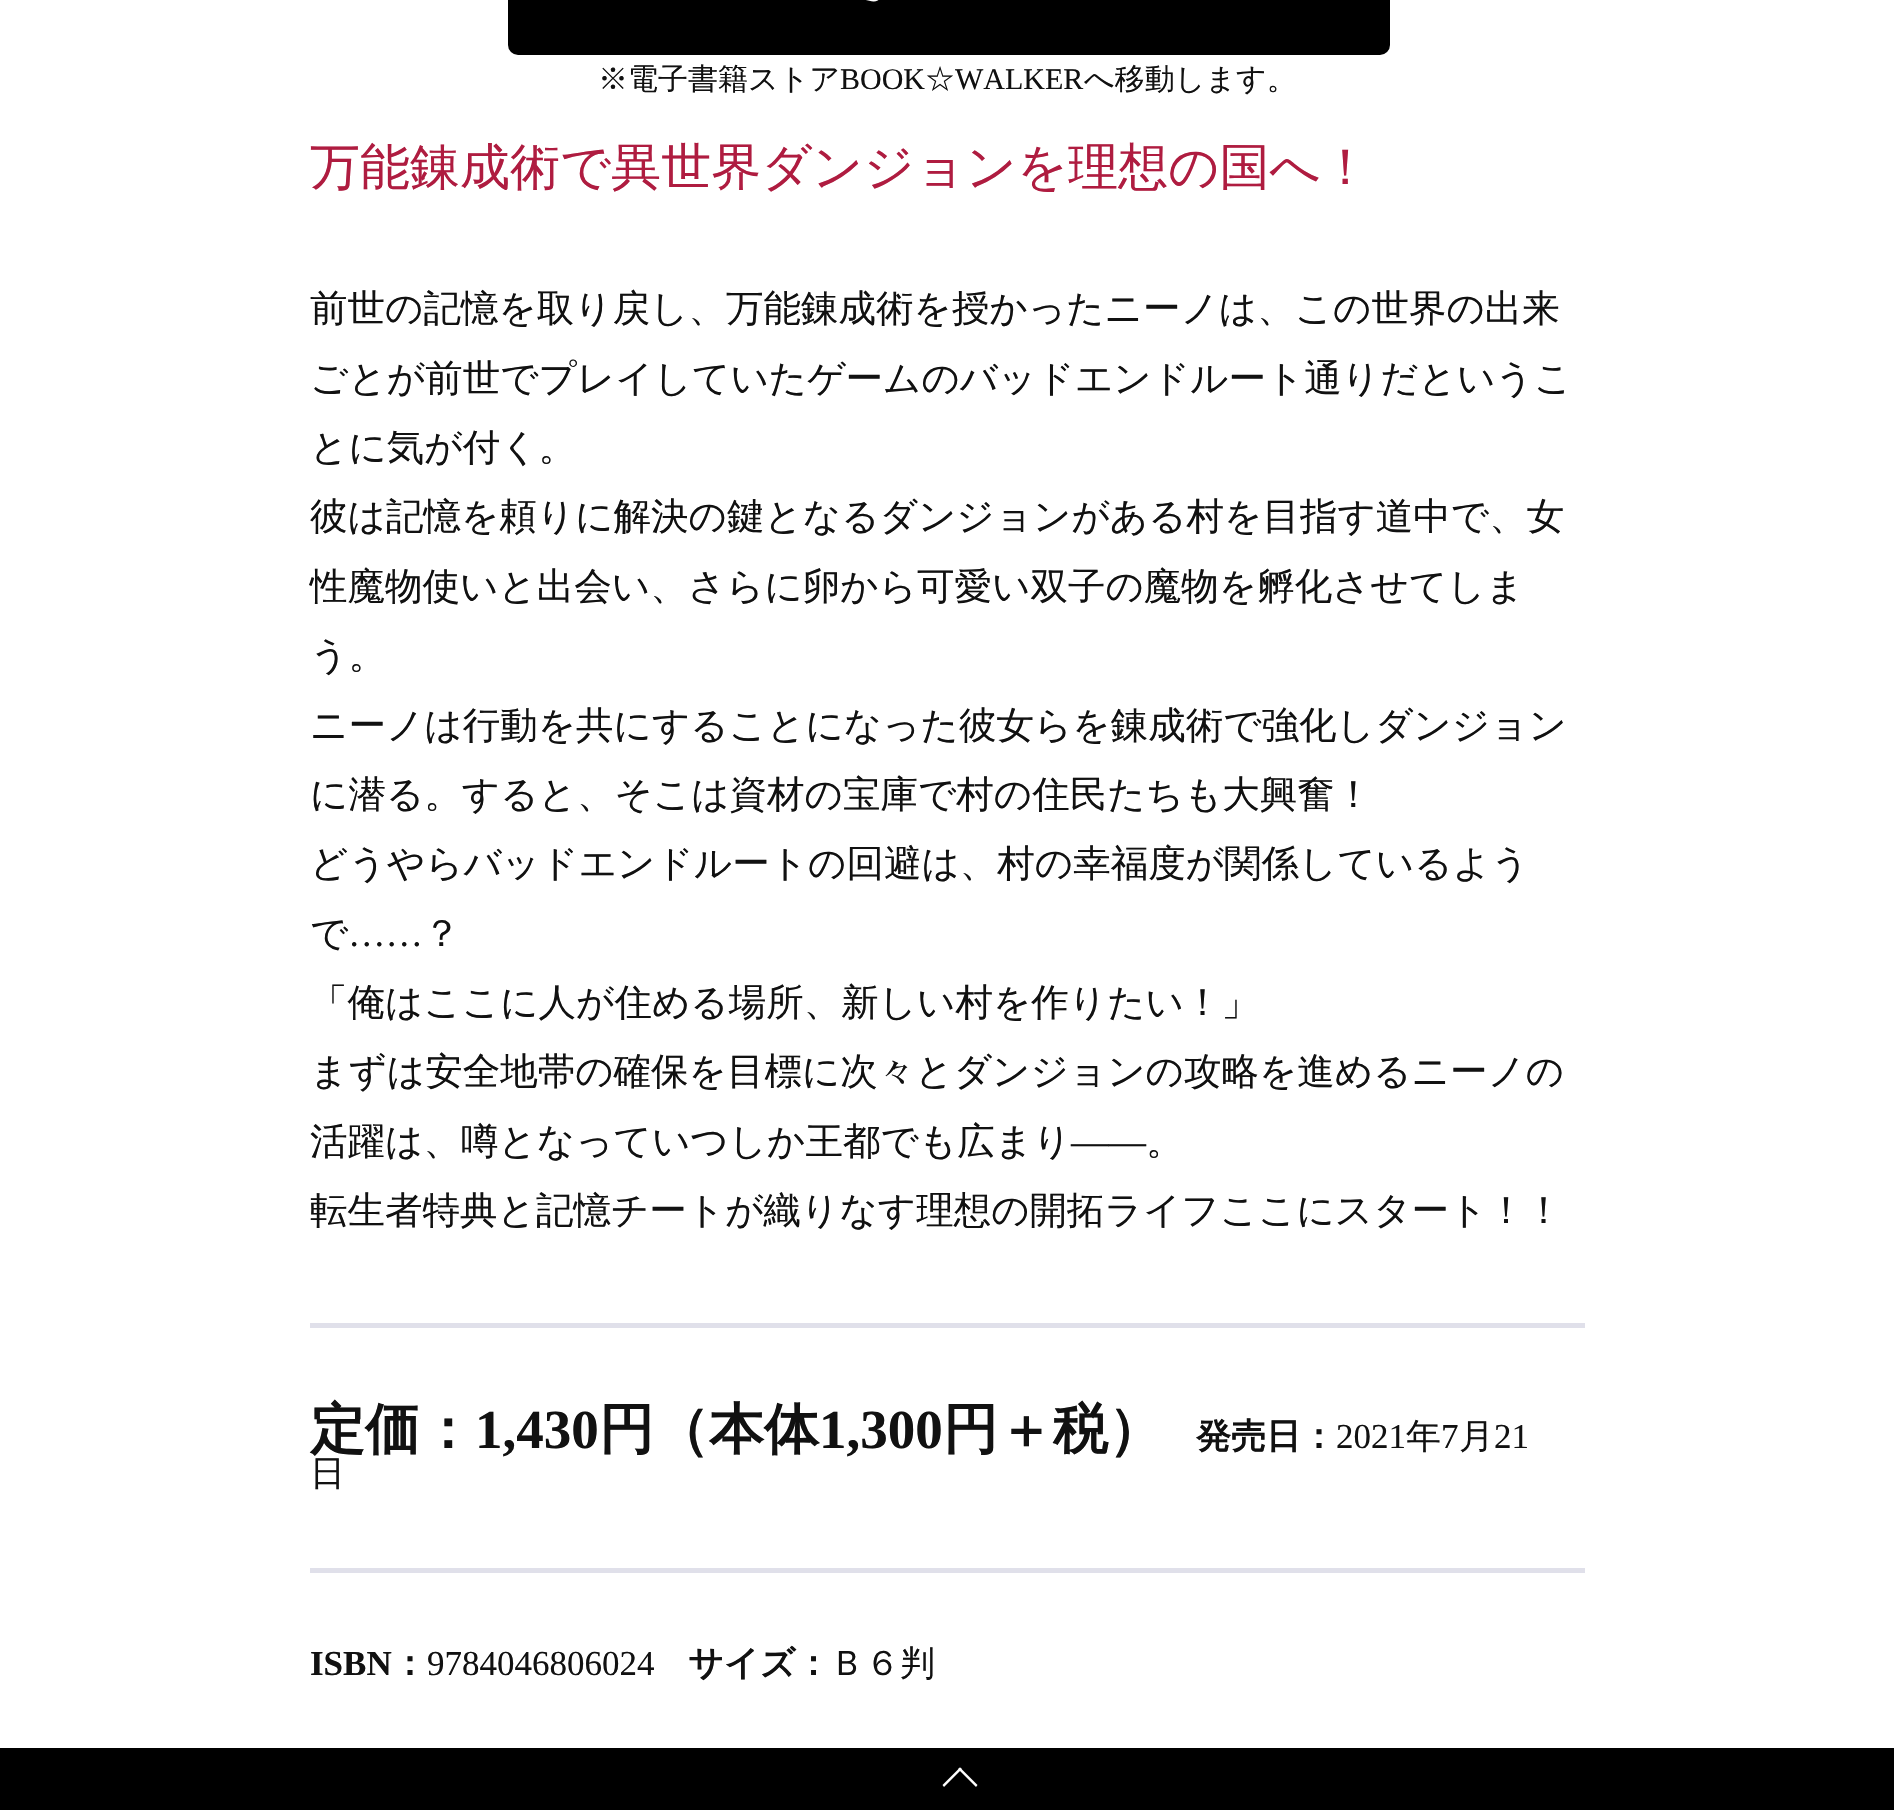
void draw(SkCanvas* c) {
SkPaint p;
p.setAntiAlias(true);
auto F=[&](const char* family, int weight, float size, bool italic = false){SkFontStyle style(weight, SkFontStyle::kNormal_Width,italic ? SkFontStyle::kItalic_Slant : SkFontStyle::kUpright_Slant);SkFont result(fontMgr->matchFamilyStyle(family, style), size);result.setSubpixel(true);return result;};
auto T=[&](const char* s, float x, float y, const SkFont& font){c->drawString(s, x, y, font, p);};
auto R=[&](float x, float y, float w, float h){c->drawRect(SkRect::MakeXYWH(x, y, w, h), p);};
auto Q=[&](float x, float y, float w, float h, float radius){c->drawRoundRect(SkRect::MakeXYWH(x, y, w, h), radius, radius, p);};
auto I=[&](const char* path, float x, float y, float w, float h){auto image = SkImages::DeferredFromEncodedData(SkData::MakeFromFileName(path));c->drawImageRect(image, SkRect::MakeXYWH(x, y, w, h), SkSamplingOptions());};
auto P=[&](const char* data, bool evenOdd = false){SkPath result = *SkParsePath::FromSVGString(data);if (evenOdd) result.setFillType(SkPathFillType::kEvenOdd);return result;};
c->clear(0xffffffff);
p.setColor(0xff000000);
Q(508,-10,882,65,10);
I("1.png",866,0,13,2);
auto f1 = F("WenQuanYi Zen Hei",500,30);
p.setColor(0xff111111);
T("※電子書籍ストア",598,89,f1);
auto f2 = F("Liberation Serif",400,30);
T("BOOK",840,89,f2);
T("☆",925,89,f1);
T("WALKER",955,89,f2);
T("へ移動します。",1084,89,f1);
auto f3 = F("WenQuanYi Zen Hei",500,50);
p.setColor(0xffaf1c40);
T("万能錬成術で異世界ダンジョンを理想の国へ！",310,184,f3);
auto f4 = F("WenQuanYi Zen Hei",500,37.5);
p.setColor(0xff111111);
T("前世の記憶を取り戻し、万能錬成術を授かったニーノは、この世界の出来",310,321,f4);
T("ごとが前世でプレイしていたゲームのバッドエンドルート通りだというこ",310,391,f4);
T("とに気が付く。",310,460,f4);
T("彼は記憶を頼りに解決の鍵となるダンジョンがある村を目指す道中で、女",310,529,f4);
T("性魔物使いと出会い、さらに卵から可愛い双子の魔物を孵化させてしま",310,599,f4);
T("う。",310,668,f4);
T("ニーノは行動を共にすることになった彼女らを錬成術で強化しダンジョン",310,738,f4);
T("に潜る。すると、そこは資材の宝庫で村の住民たちも大興奮！",310,807,f4);
T("どうやらバッドエンドルートの回避は、村の幸福度が関係しているよう",310,876,f4);
T("で",310,946,f4);
auto f5 = F("Liberation Serif",400,37.5);
T("……",348,946,f5);
T("？",423,946,f4);
T("「俺はここに人が住める場所、新しい村を作りたい！」",310,1015,f4);
T("まずは安全地帯の確保を目標に次々とダンジョンの攻略を進めるニーノの",310,1084,f4);
T("活躍は、噂となっていつしか王都でも広まり",310,1154,f4);
T("――",1071,1154,f5);
T("。",1146,1154,f4);
T("転生者特典と記憶チートが織りなす理想の開拓ライフここにスタート！！",310,1223,f4);
p.setColor(0xffe0e0ea);
R(310,1323,1275,5);
auto f6 = F("WenQuanYi Zen Hei",700,55);
p.setColor(0xff111111);
T("定価：",310,1448,f6);
auto f7 = F("Liberation Serif",700,55);
T("1,430",475,1448,f7);
T("円（本体",599,1448,f6);
T("1,300",819,1448,f7);
T("円＋税）",943,1448,f6);
auto f8 = F("WenQuanYi Zen Hei",700,35);
T("発売日：",1196,1448,f8);
auto f9 = F("Liberation Serif",400,35);
T("2021",1336,1448,f9);
auto f10 = F("WenQuanYi Zen Hei",500,35);
T("年",1406,1448,f10);
T("7",1441,1448,f9);
T("月",1459,1448,f10);
T("21",1494,1448,f9);
T("日",310,1485,f10);
p.setColor(0xffe0e0ea);
R(310,1568,1275,5);
auto f11 = F("Liberation Serif",700,35);
p.setColor(0xff111111);
T("ISBN",310,1675,f11);
T("：",392,1675,f8);
T("9784046806024",427,1675,f9);
T("サイズ：",688,1675,f8);
T("Ｂ６判",830,1675,f10);
p.setColor(0xff000000);
R(0,1748,1894,62);
p.setColor(0xffffffff);
c->drawPath(P("M942.5 1785l17.5-17.5l2 1.5l-18 18z"),p);
c->drawPath(P("M958 1769l2-1.5l17.5 17.5l-1.5 2z"),p);
}
